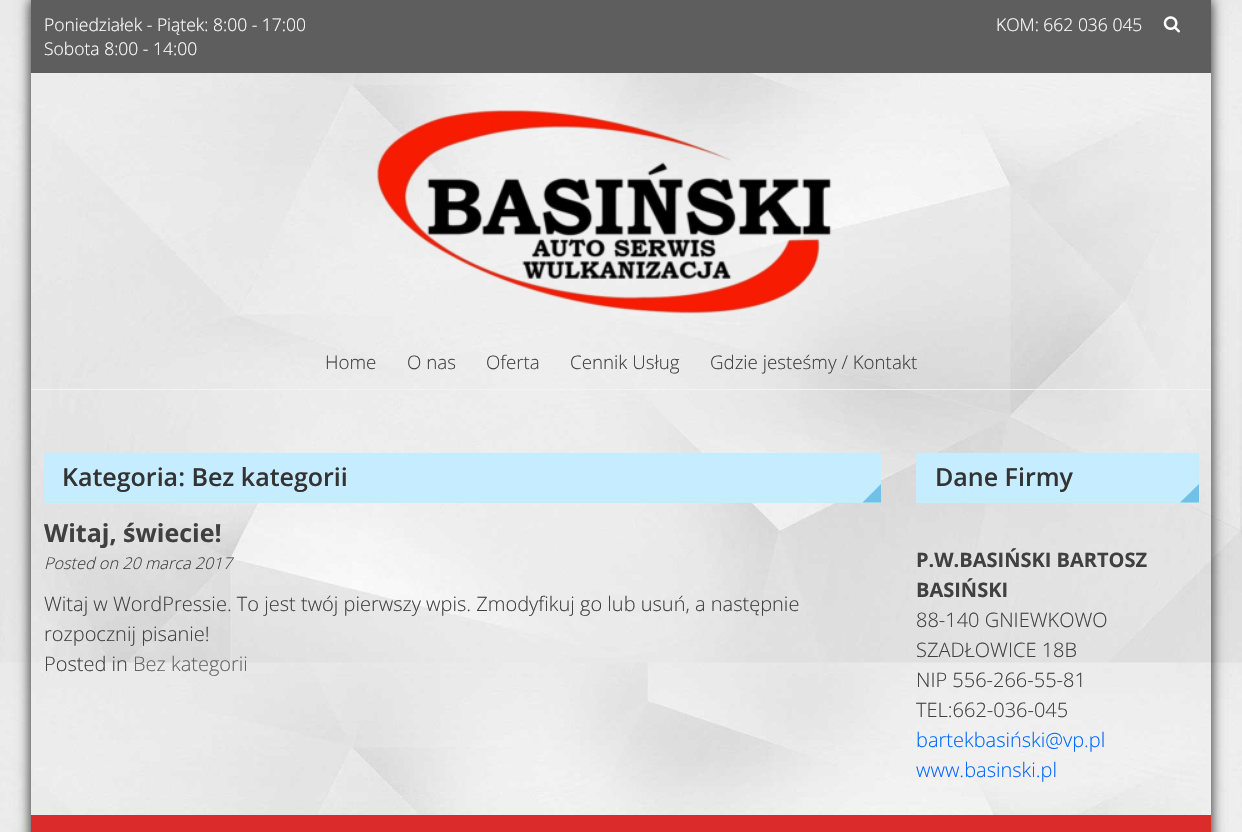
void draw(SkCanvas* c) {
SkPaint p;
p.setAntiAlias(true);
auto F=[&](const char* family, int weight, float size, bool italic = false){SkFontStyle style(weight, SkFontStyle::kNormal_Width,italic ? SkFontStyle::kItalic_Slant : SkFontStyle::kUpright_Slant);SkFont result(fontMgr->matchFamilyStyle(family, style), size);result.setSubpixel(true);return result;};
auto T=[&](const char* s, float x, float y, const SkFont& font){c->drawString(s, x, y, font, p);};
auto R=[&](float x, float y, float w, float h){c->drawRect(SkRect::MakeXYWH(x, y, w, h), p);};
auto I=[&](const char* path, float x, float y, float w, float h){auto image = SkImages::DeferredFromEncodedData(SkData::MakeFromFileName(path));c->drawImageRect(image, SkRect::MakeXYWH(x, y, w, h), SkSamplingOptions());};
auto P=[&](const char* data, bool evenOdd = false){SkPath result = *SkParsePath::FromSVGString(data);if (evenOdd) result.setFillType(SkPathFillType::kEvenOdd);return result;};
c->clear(0xffffffff);
I("1.png",0,0,1242,832);
c->save();
c->clipPath(P("M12 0h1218v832h-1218zm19 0h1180v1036h-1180z",true),true);
p.setColor(0x80000000);
p.setMaskFilter(SkMaskFilter::MakeBlur(kNormal_SkBlurStyle, 6));
c->drawRect(SkRect::MakeXYWH(31,0,1180,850),p);
p.setMaskFilter(nullptr);
p.setMaskFilter(SkMaskFilter::MakeBlur(kNormal_SkBlurStyle, 6));
c->drawRect(SkRect::MakeXYWH(31,0,1180,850),p);
p.setMaskFilter(nullptr);
c->restore();
p.setColor(0xff5e5e5e);
R(31,0,1180,73);
auto f1 = F("Open Sans",300,17.5);
p.setColor(0xffffffff);
T("Poniedziałek - Piątek: 8:00 - 17:00",44,31,f1);
T("Sobota 8:00 - 14:00",44,55,f1);
T("KOM: 662 036 045",996,31,f1);
I("2.png",1163,16,17,17);
p.setColor(0xfff3f3f3);
R(31,389,1180,1);
I("3.png",376,109,456,205);
auto f2 = F("Open Sans",300,18.75);
p.setColor(0xff404040);
T("Home",325,369,f2);
T("O nas",407,369,f2);
T("Oferta",486,369,f2);
T("Cennik Usług",570,369,f2);
T("Gdzie jesteśmy / Kontakt",710,369,f2);
p.setColor(0xffc6ecff);
R(44,453,837,50);
auto f3 = F("Open Sans",600,25);
p.setColor(0xff333333);
T("Kategoria: Bez kategorii",62,486,f3);
p.setColor(0xff70c0e8);
c->drawPath(P("M881 502.5h-18.5l18.5-18.5z"),p);
auto f4 = F("Open Sans",700,25);
p.setColor(0xff404040);
T("Witaj, świecie!",44,542,f4);
auto f5 = F("Open Sans",300,16.25,true);
T("Posted on 20 marca 2017",44,569,f5);
auto f6 = F("Open Sans",300,20);
T("Witaj w WordPressie. To jest twój pierwszy wpis. Zmodyfikuj go lub usuń, a następnie",44,611,f6);
T("rozpocznij pisanie!",44,641,f6);
T("Posted in",44,671,f6);
p.setColor(0xff646464);
T("Bez kategorii",133,671,f6);
p.setColor(0xffc6ecff);
R(916,453,283,50);
p.setColor(0xff333333);
T("Dane Firmy",935,486,f3);
p.setColor(0xff70c0e8);
c->drawPath(P("M1199 502.5h-19l19-18.5z"),p);
auto f7 = F("Open Sans",700,20);
p.setColor(0xff404040);
T("P.W.BASIŃSKI BARTOSZ",916,567,f7);
T("BASIŃSKI",916,597,f7);
T("88-140 GNIEWKOWO",916,627,f6);
T("SZADŁOWICE 18B",916,657,f6);
T("NIP 556-266-55-81",916,687,f6);
T("TEL:662-036-045",916,717,f6);
p.setColor(0xff0066ff);
T("bartekbasiński@vp.pl",916,747,f6);
T("www.basinski.pl",916,777,f6);
p.setColor(0xffdb2b2b);
R(31,815,1180,17);
}
